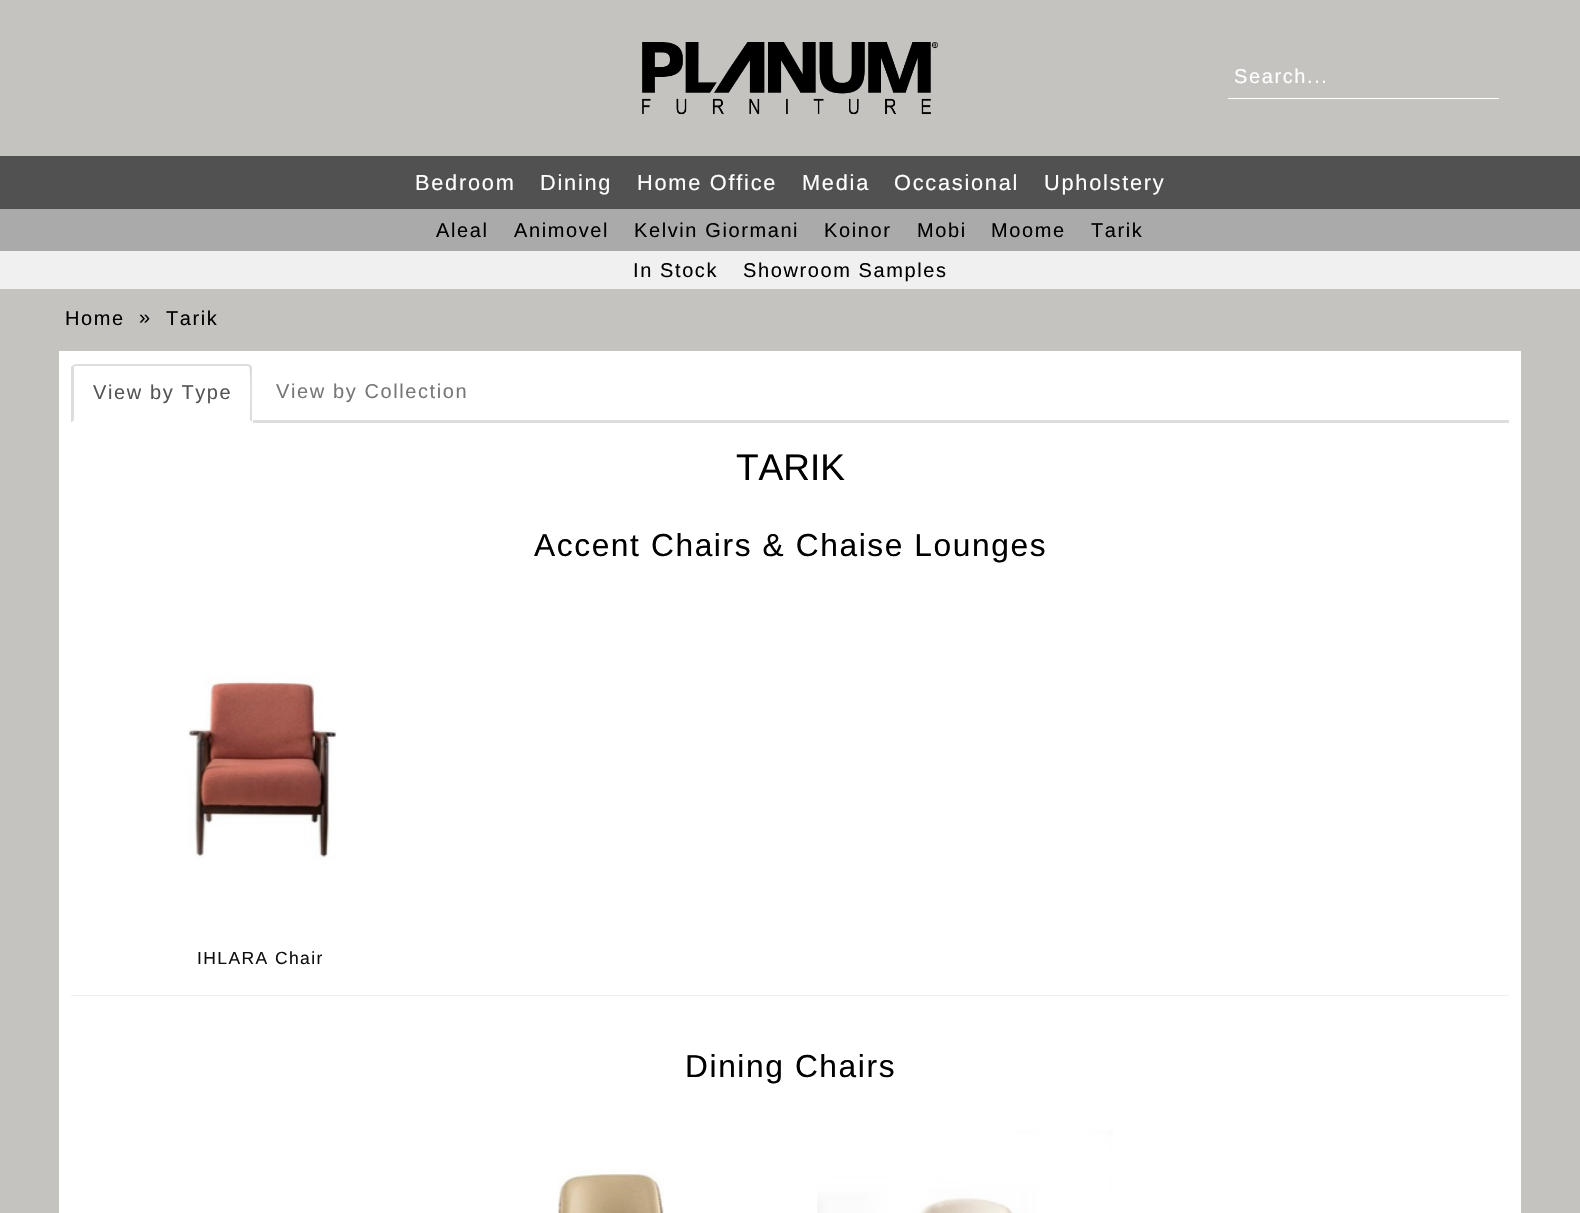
void draw(SkCanvas* c) {
SkPaint p;
p.setAntiAlias(true);
auto F=[&](const char* family, int weight, float size, bool italic = false){SkFontStyle style(weight, SkFontStyle::kNormal_Width,italic ? SkFontStyle::kItalic_Slant : SkFontStyle::kUpright_Slant);SkFont result(fontMgr->matchFamilyStyle(family, style), size);result.setSubpixel(true);return result;};
auto T=[&](const char* s, float x, float y, const SkFont& font){c->drawString(s, x, y, font, p);};
auto L=[&](const char* s, float x, float y, const SkFont& font, const SkPaint& ink, float letter, float word){std::vector<SkGlyphID> glyphs(font.countText(s, strlen(s), SkTextEncoding::kUTF8));std::vector<float> xs(glyphs.size());font.textToGlyphs(s, strlen(s), SkTextEncoding::kUTF8, glyphs);font.getXPos(glyphs, xs, x);float extra = 0;for (size_t i = 0; i < glyphs.size(); i++) {xs[i] += extra;extra += letter + word * (glyphs[i] == font.unicharToGlyph(' '));}c->drawTextBlob(SkTextBlob::MakeFromPosHGlyphs(glyphs, xs, y, font), 0, 0, ink);};
auto R=[&](float x, float y, float w, float h){c->drawRect(SkRect::MakeXYWH(x, y, w, h), p);};
auto I=[&](const char* path, float x, float y, float w, float h){auto image = SkImages::DeferredFromEncodedData(SkData::MakeFromFileName(path));c->drawImageRect(image, SkRect::MakeXYWH(x, y, w, h), SkSamplingOptions());};
auto P=[&](const char* data, bool evenOdd = false){SkPath result = *SkParsePath::FromSVGString(data);if (evenOdd) result.setFillType(SkPathFillType::kEvenOdd);return result;};
c->clear(0xffc5c3c0);
I("1.png",642,42,296,73);
p.setColor(0xffffffff);
R(1228,98,271,1);
auto f1 = F("Liberation Sans",400,20);
L("Search...",1234,83,f1,p,1.6,0);
p.setColor(0xff515151);
R(0,156,1580,53);
auto f2 = F("Liberation Sans",400,21.75);
p.setColor(0xffffffff);
L("Bedroom",415,190,f2,p,1.75,0);
L("Dining",540,190,f2,p,1.75,0);
L("Home Office",637,190,f2,p,1.75,0);
L("Media",802,190,f2,p,1.75,0);
L("Occasional",894,190,f2,p,1.75,0);
L("Upholstery",1044,190,f2,p,1.75,0);
p.setColor(0xffaaaaaa);
R(0,209,1580,42);
p.setColor(0xff000000);
L("Aleal",436,237,f1,p,1.6,0);
L("Animovel",514,237,f1,p,1.6,0);
L("Kelvin Giormani",634,237,f1,p,1.6,0);
L("Koinor",824,237,f1,p,1.6,0);
L("Mobi",917,237,f1,p,1.6,0);
L("Moome",991,237,f1,p,1.6,0);
L("Tarik",1091,237,f1,p,1.6,0);
p.setColor(0xfff0f0f0);
R(0,251,1580,38);
p.setColor(0xff000000);
L("In Stock",633,277,f1,p,1.6,0);
L("Showroom Samples",743,277,f1,p,1.6,0);
p.setColor(0xffffffff);
R(59,351,1462,862);
p.setColor(0xff000000);
L("Home",65,325,f1,p,1.6,0);
T("»",139,324,f1);
L("Tarik",166,325,f1,p,1.6,0);
p.setColor(0xffdddddd);
R(253,420,1256,3);
c->drawPath(P("M76 364l-3 1l1 2l1-1h116h57l1 1l2-2c-1 0-2-1-3-1z"),p);
c->drawPath(P("M252 422v-53c0-1 0-3-1-4l-2 2c2 2 1 47 1 53z"),p);
c->drawPath(P("M71 367l2-2l1 2v2v51l-2 2h-1z"),p);
p.setColor(0xff555555);
L("View by Type",93,399,f1,p,1.6,0);
p.setColor(0xff777777);
L("View by Collection",276,398,f1,p,1.6,0);
auto f3 = F("Liberation Sans",400,37);
p.setColor(0xff000000);
T("TARIK",736,480,f3);
auto f4 = F("Liberation Sans",400,31.7);
L("Accent Chairs & Chaise Lounges",534,556,f4,p,1.6,0);
I("2.png",187,674,150,186);
auto f5 = F("Liberation Sans",400,17.5);
p.setColor(0xff0f0f0f);
L("IHLARA Chair",197,964,f5,p,1.4,0);
p.setColor(0xffeeeeee);
R(71,995,1438,1);
p.setColor(0xff000000);
L("Dining Chairs",685,1077,f4,p,1.6,0);
I("3.png",557,1169,107,44);
I("4.png",817,1130,296,83);
}
